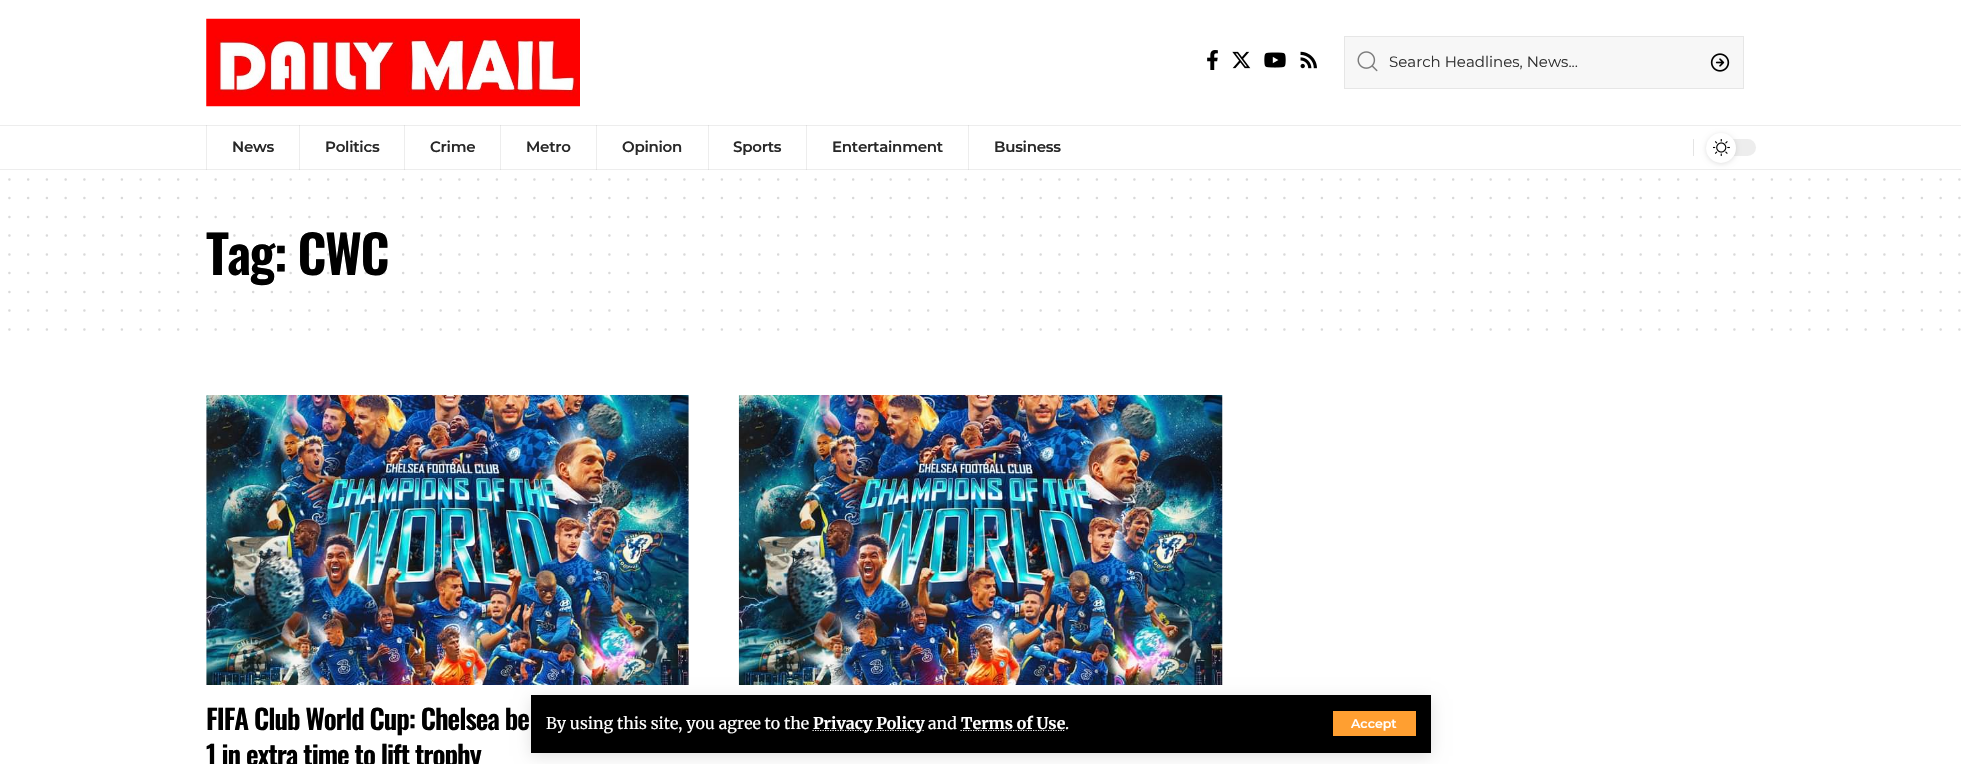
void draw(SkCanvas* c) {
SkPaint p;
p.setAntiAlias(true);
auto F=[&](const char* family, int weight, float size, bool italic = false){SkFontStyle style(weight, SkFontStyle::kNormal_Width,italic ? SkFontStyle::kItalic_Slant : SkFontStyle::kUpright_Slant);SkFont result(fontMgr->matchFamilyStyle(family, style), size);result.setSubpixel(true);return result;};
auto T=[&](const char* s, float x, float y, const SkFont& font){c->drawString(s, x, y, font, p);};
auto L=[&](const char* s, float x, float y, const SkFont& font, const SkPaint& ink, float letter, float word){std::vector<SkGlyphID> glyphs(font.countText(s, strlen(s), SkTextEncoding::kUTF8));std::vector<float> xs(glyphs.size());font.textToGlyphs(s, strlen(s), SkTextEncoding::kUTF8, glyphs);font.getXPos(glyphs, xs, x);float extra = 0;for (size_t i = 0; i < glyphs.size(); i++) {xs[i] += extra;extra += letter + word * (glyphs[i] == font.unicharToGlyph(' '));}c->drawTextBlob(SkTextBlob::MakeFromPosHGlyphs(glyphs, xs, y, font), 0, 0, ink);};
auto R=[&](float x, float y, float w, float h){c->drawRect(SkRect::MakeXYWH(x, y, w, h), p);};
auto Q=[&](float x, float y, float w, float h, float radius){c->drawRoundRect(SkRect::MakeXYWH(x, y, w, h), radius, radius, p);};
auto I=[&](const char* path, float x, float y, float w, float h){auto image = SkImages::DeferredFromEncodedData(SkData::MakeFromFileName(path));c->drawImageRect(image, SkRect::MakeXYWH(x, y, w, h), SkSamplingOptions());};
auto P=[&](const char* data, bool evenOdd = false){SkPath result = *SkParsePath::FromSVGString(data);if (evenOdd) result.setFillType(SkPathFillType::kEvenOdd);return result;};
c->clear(0xffffffff);
p.setColor(0xffededed);
R(0,169,1961,1);
R(968,125,1,45);
p.setColor(0xffdedede);
R(968,169,1,1);
p.setColor(0xffededed);
R(806,125,1,45);
p.setColor(0xffdedede);
R(806,169,1,1);
p.setColor(0xffededed);
R(708,125,1,45);
p.setColor(0xffdedede);
R(708,169,1,1);
p.setColor(0xffededed);
R(596,125,1,45);
p.setColor(0xffdedede);
R(596,169,1,1);
p.setColor(0xffededed);
R(500,125,1,45);
p.setColor(0xffdedede);
R(500,169,1,1);
p.setColor(0xffededed);
R(404,125,1,45);
p.setColor(0xffdedede);
R(404,169,1,1);
p.setColor(0xffededed);
R(299,125,1,45);
p.setColor(0xffdedede);
R(299,169,1,1);
p.setColor(0xffededed);
R(206,125,1,45);
p.setColor(0xffdedede);
R(206,169,1,1);
I("1.png",206,18,374,89);
I("2.png",1207,50,11,20);
I("3.png",1232,51,19,18);
I("4.png",1264,52,22,16);
I("5.png",1300,51,17,18);
p.setColor(0xfff7f7f7);
c->drawRect(SkRect::MakeXYWH(1344.5,36.5,399,52),p);
p.setStroke(true);
p.setStrokeWidth(1);
p.setColor(0xffe6e6e6);
c->drawRect(SkRect::MakeXYWH(1344.5,36.5,399,52),p);
I("6.png",1357,51,21,21);
auto f1 = F("Montserrat",400,15);
p.setStroke(false);
p.setColor(0xff313131);
T("Search Headlines, News...",1389,67,f1);
I("7.png",1710,53,20,19);
p.setColor(0xffededed);
R(0,125,1961,1);
p.setColor(0xffdedede);
R(968,125,1,1);
R(806,125,1,1);
R(708,125,1,1);
R(596,125,1,1);
R(500,125,1,1);
R(404,125,1,1);
R(299,125,1,1);
R(206,125,1,1);
auto f2 = F("Montserrat",600,15);
p.setColor(0xff282828);
L("News",232,152,f2,p,-.25,0);
L("Politics",325,152,f2,p,-.25,0);
L("Crime",430,152,f2,p,-.25,0);
L("Metro",526,152,f2,p,-.25,0);
L("Opinion",622,152,f2,p,-.25,0);
L("Sports",733,152,f2,p,-.25,0);
L("Entertainment",832,152,f2,p,-.25,0);
L("Business",994,152,f2,p,-.25,0);
p.setColor(0xffe4e4e4);
R(1693,139,1,17);
p.setColor(0xffededed);
Q(1706,139,50,17,8.5);
p.setColor(0x1f000000);
p.setMaskFilter(SkMaskFilter::MakeBlur(kNormal_SkBlurStyle, 2.5));
c->drawRoundRect(SkRect::MakeXYWH(1706,134,30,30),15,15,p);
p.setMaskFilter(nullptr);
p.setColor(0xffffffff);
c->drawCircle(1721,148,15,p);
I("8.png",1713,139,17,17);
I("9.png",738,395,485,290);
I("10.png",206,395,483,290);
p.setColor(0x1f000000);
p.setMaskFilter(SkMaskFilter::MakeBlur(kNormal_SkBlurStyle, 7.5));
c->drawRect(SkRect::MakeXYWH(531,699,900,57),p);
p.setMaskFilter(nullptr);
p.setColor(0xff000000);
R(531,695,900,58);
auto f3 = F("Merriweather",400,16);
p.setColor(0xffffffff);
T("By using this site, you agree to the",546,729,f3);
p.setStroke(true);
p.setStrokeWidth(1.2);
p.setPathEffect(SkDashPathEffect::Make({{1.25f,1.25f}}, 0));
c->drawPath(P("M812.5 730.5h111.5"),p);
p.setPathEffect(nullptr);
auto f4 = F("Merriweather",700,16);
p.setStroke(false);
T("Privacy Policy",813,729,f4);
T("and",928,729,f3);
p.setStroke(true);
p.setPathEffect(SkDashPathEffect::Make({{1.25f,1.25f}}, 0));
c->drawPath(P("M960.5 730.5h104.5"),p);
p.setPathEffect(nullptr);
p.setStroke(false);
T("Terms of Use",961,729,f4);
T(".",1065,729,f3);
p.setColor(0xffff9f31);
R(1333,711,83,25);
auto f5 = F("Montserrat",600,12.5);
p.setColor(0xffffffff);
T("Accept",1351,728,f5);
p.setStroke(true);
p.setStrokeWidth(2.5);
p.setStrokeCap(SkPaint::kRound_Cap);
p.setColor(0xffd9d9d9);
p.setPathEffect(SkDashPathEffect::Make({{0,18.75f}}, 0));
c->drawPath(P("M9.4 179.4h1950.2"),p);
p.setPathEffect(nullptr);
p.setPathEffect(SkDashPathEffect::Make({{0,18.75f}}, 0));
c->drawPath(P("M9.4 198.1h1950.2"),p);
p.setPathEffect(nullptr);
p.setPathEffect(SkDashPathEffect::Make({{0,18.75f}}, 0));
c->drawPath(P("M9.4 216.9h1950.2"),p);
p.setPathEffect(nullptr);
auto f6 = F("Oswald",600,52.5);
p.setStroke(false);
p.setColor(0xff000000);
L("Tag: CWC",206,275,f6,p,-1.5,0);
p.setStroke(true);
p.setColor(0x26000000);
p.setPathEffect(SkDashPathEffect::Make({{0,18.75f}}, 0));
c->drawPath(P("M9.4 235.6h1950.2"),p);
p.setPathEffect(nullptr);
p.setPathEffect(SkDashPathEffect::Make({{0,18.75f}}, 0));
c->drawPath(P("M9.4 254.4h1950.2"),p);
p.setPathEffect(nullptr);
p.setPathEffect(SkDashPathEffect::Make({{0,18.75f}}, 0));
c->drawPath(P("M9.4 273.1h1950.2"),p);
p.setPathEffect(nullptr);
p.setColor(0xffd9d9d9);
p.setPathEffect(SkDashPathEffect::Make({{0,18.75f}}, 0));
c->drawPath(P("M9.4 291.9h1950.2"),p);
p.setPathEffect(nullptr);
p.setPathEffect(SkDashPathEffect::Make({{0,18.75f}}, 0));
c->drawPath(P("M9.4 310.6h1950.2"),p);
p.setPathEffect(nullptr);
p.setPathEffect(SkDashPathEffect::Make({{0,18.75f}}, 0));
c->drawPath(P("M9.4 329.4h1950.2"),p);
p.setPathEffect(nullptr);
auto f7 = F("Oswald",600,27.5);
p.setStroke(false);
p.setColor(0xff000000);
L("FIFA Club World Cup: Chelsea be",206,730,f7,p,-1,0);
L("1 in extra time to lift trophy",206,766,f7,p,-1,0);
}
